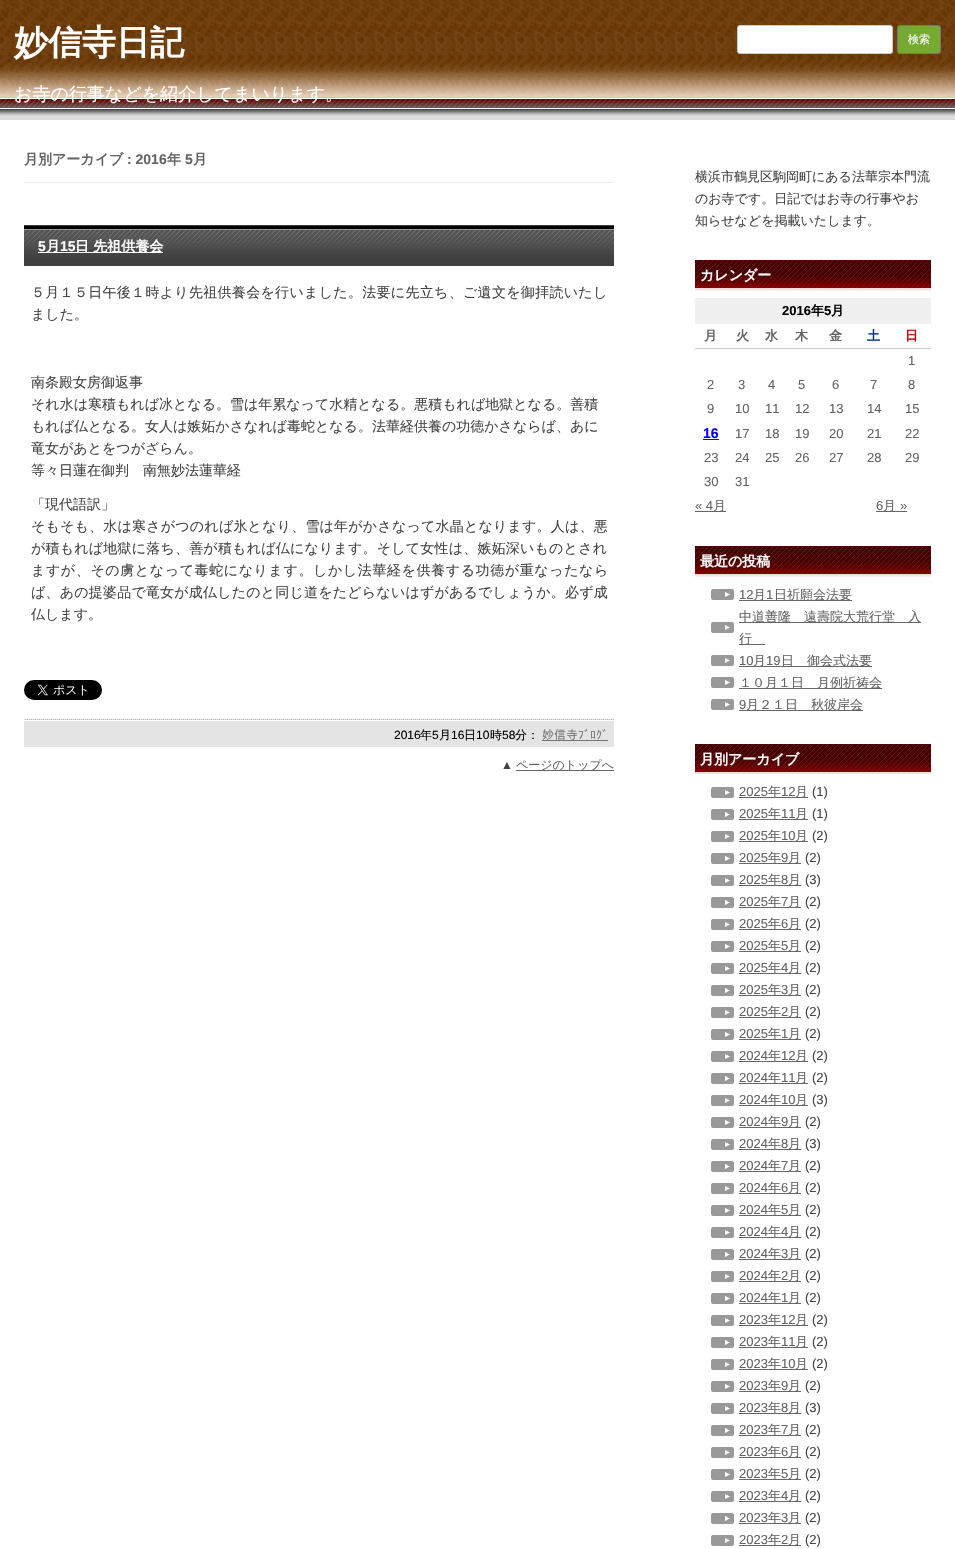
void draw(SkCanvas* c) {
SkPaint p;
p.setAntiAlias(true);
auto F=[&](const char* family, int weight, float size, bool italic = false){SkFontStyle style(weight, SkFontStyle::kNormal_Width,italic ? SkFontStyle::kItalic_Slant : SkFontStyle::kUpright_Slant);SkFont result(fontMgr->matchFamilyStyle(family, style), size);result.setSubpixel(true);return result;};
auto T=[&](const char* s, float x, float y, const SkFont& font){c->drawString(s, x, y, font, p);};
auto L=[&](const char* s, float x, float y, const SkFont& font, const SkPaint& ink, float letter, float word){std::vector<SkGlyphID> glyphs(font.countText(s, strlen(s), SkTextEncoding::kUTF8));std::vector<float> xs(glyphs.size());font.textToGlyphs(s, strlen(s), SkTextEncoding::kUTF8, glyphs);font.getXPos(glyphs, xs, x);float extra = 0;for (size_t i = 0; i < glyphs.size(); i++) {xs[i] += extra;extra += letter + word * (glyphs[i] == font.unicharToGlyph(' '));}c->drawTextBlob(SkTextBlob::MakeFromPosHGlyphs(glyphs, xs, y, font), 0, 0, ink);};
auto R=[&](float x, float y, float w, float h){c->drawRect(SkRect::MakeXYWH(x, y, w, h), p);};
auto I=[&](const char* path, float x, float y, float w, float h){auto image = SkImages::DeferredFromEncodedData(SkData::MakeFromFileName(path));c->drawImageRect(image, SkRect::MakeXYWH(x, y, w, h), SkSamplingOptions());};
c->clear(0xffffffff);
I("1.png",0,116,955,4);
I("2.png",0,0,955,116);
auto f1 = F("WenQuanYi Zen Hei",700,34);
p.setColor(0xffffffff);
T("妙信寺日記",14,54,f1);
auto f2 = F("WenQuanYi Zen Hei",500,18);
T("お寺の行事などを紹介してまいります。",14,100,f2);
c->drawRoundRect(SkRect::MakeXYWH(737.5,25.5,155,28),2.5,2.5,p);
p.setStroke(true);
p.setStrokeWidth(1);
p.setColor(0xffcccccc);
c->drawRoundRect(SkRect::MakeXYWH(737.5,25.5,155,28),2.5,2.5,p);
p.setStroke(false);
p.setColor(0xff77aa33);
c->drawRoundRect(SkRect::MakeXYWH(897.5,25.5,43,28),2.5,2.5,p);
p.setStroke(true);
p.setColor(0xff777777);
c->drawRoundRect(SkRect::MakeXYWH(897.5,25.5,43,28),2.5,2.5,p);
auto f3 = F("WenQuanYi Zen Hei",500,11);
p.setStroke(false);
p.setColor(0xffffffff);
T("検索",908,43,f3);
p.setColor(0xffededed);
R(24,182,590,1);
auto f4 = F("WenQuanYi Zen Hei",700,14);
p.setColor(0xff636363);
T("月別アーカイブ",24,164,f4);
auto f5 = F("Liberation Sans",700,14);
T(": 2016",127,164,f5);
T("年",167,164,f4);
T("5",185,164,f5);
T("月",193,164,f4);
I("3.png",24,225,590,41);
p.setColor(0xffffffff);
T("5",38,251,f5);
R(38,252,125,1);
T("月",46,251,f4);
T("15",60,251,f5);
T("日 先祖供養会",75,251,f4);
auto f6 = F("WenQuanYi Zen Hei",500,14);
p.setColor(0xff444444);
L("５月１５日午後１時より先祖供養会を行いました。法要に先立ち、ご遺文を御拝読いたし",31,297,f6,p,.3,0);
T("ました。",31,319,f6);
T("南条殿女房御返事",31,387,f6);
T("それ水は寒積もれば冰となる。雪は年累なって水精となる。悪積もれば地獄となる。善積",31,409,f6);
T("もれば仏となる。女人は嫉妬かさなれば毒蛇となる。法華経供養の功徳かさならば、あに",31,431,f6);
T("竜女があとをつがざらん。",31,453,f6);
T("等々日蓮在御判　南無妙法蓮華経",31,475,f6);
T("「現代語訳」",31,509,f6);
L("そもそも、水は寒さがつのれば氷となり、雪は年がかさなって水晶となります。人は、悪",31,531,f6,p,.2,0);
L("が積もれば地獄に落ち、善が積もれば仏になります。そして女性は、嫉妬深いものとされ",31,553,f6,p,.2,0);
L("ますが、その虜となって毒蛇になります。しかし法華経を供養する功徳が重なったなら",31,575,f6,p,.6,0);
L("ば、あの提婆品で竜女が成仏したのと同じ道をたどらないはずがあるでしょうか。必ず成",31,597,f6,p,.2,0);
T("仏します。",31,619,f6);
I("4.png",24,680,78,20);
I("5.png",24,719,590,28);
auto f7 = F("Liberation Sans",400,12);
p.setColor(0xff000000);
T("2016",394,739,f7);
auto f8 = F("WenQuanYi Zen Hei",500,12);
T("年",420,739,f8);
T("5",432,739,f7);
T("月",439,739,f8);
T("16",451,739,f7);
T("日",464,739,f8);
T("10",476,739,f7);
T("時",490,739,f8);
T("58",502,739,f7);
T("分：",515,739,f8);
auto f9 = F("IPAPGothic",400,12);
p.setColor(0xff757575);
T("妙信寺ﾌﾞﾛｸﾞ",542,739,f9);
R(542,740,66,1);
p.setColor(0xff444444);
T("▲",501,769,f7);
p.setColor(0xff666666);
R(516,770,98,1);
p.setColor(0xff636363);
T("ページのトップへ",516,769,f8);
auto f10 = F("WenQuanYi Zen Hei",500,13);
p.setColor(0xff444444);
T("横浜市鶴見区駒岡町にある法華宗本門流",695,181,f10);
T("のお寺です。日記ではお寺の行事やお",695,203,f10);
T("知らせなどを掲載いたします。",695,225,f10);
I("6.png",695,260,236,31);
p.setColor(0xffffffff);
T("カレンダー",700,280,f4);
p.setColor(0xfff0f0f0);
R(695,298,236,26);
auto f11 = F("Liberation Sans",700,13);
p.setColor(0xff000000);
T("2016",782,315,f11);
auto f12 = F("WenQuanYi Zen Hei",700,13);
T("年",811,315,f12);
T("5",824,315,f11);
T("月",831,315,f12);
p.setColor(0xff636363);
T("月",704,340,f12);
T("火",736,340,f12);
T("水",765,340,f12);
T("木",795,340,f12);
T("金",829,340,f12);
p.setColor(0xff003399);
T("土",867,340,f12);
p.setColor(0xffcccccc);
R(695,348,236,1);
p.setColor(0xffcc0000);
T("日",905,340,f12);
auto f13 = F("Liberation Sans",400,13);
p.setColor(0xff636363);
T("1",908,365,f13);
T("2",707,389,f13);
T("3",738,389,f13);
T("4",768,389,f13);
T("5",798,389,f13);
T("6",832,389,f13);
T("7",870,389,f13);
T("8",908,389,f13);
T("9",707,413,f13);
T("10",735,413,f13);
T("11",765,413,f13);
T("12",795,413,f13);
T("13",829,413,f13);
T("14",867,413,f13);
T("15",905,413,f13);
p.setColor(0xff0000ff);
T("16",703,438,f5);
R(703,439,16,1);
p.setColor(0xff636363);
T("17",735,438,f13);
T("18",765,438,f13);
T("19",795,438,f13);
T("20",829,438,f13);
T("21",867,438,f13);
T("22",905,438,f13);
T("23",704,462,f13);
T("24",735,462,f13);
T("25",765,462,f13);
T("26",795,462,f13);
T("27",829,462,f13);
T("28",867,462,f13);
T("29",905,462,f13);
T("30",704,486,f13);
T("31",735,486,f13);
T("« 4",695,510,f13);
p.setColor(0xff666666);
R(695,511,31,1);
p.setColor(0xff636363);
T("月",713,510,f10);
T("6",876,510,f13);
p.setColor(0xff666666);
R(876,511,31,1);
p.setColor(0xff636363);
T("月",883,510,f10);
T("»",900,510,f13);
I("6.png",695,546,236,31);
p.setColor(0xffffffff);
T("最近の投稿",700,566,f4);
I("7.png",711,589,23,11);
p.setColor(0xff636363);
T("12",739,599,f13);
p.setColor(0xff666666);
R(739,600,113,1);
p.setColor(0xff636363);
T("月",753,599,f10);
T("1",766,599,f13);
T("日祈願会法要",774,599,f10);
I("7.png",711,622,23,11);
p.setColor(0xff666666);
R(739,622,182,1);
p.setColor(0xff636363);
T("中道善隆　遠壽院大荒行堂　入",739,621,f10);
p.setColor(0xff666666);
R(739,644,26,1);
p.setColor(0xff636363);
T("行",739,643,f10);
I("7.png",711,655,23,11);
T("10",739,665,f13);
p.setColor(0xff666666);
R(739,666,133,1);
p.setColor(0xff636363);
T("月",753,665,f10);
T("19",766,665,f13);
T("日　御会式法要",781,665,f10);
I("7.png",711,677,23,11);
p.setColor(0xff666666);
R(739,688,143,1);
p.setColor(0xff636363);
T("１０月１日　月例祈祷会",739,687,f10);
I("7.png",711,699,23,11);
T("9",739,709,f13);
p.setColor(0xff666666);
R(739,710,124,1);
p.setColor(0xff636363);
T("月２１日　秋彼岸会",746,709,f10);
I("8.png",695,744,236,30);
p.setColor(0xffffffff);
T("月別アーカイブ",700,764,f4);
I("7.png",711,787,23,11);
p.setColor(0xff636363);
T("2025",739,796,f13);
p.setColor(0xff666666);
R(739,797,69,1);
p.setColor(0xff636363);
T("年",768,796,f10);
T("12",781,796,f13);
T("月",795,796,f10);
p.setColor(0xff444444);
T("(1)",812,796,f13);
I("7.png",711,809,23,11);
p.setColor(0xff636363);
T("2025",739,818,f13);
p.setColor(0xff666666);
R(739,819,69,1);
p.setColor(0xff636363);
T("年",768,818,f10);
T("11",781,818,f13);
T("月",795,818,f10);
p.setColor(0xff444444);
T("(1)",812,818,f13);
I("7.png",711,831,23,11);
p.setColor(0xff636363);
T("2025",739,840,f13);
p.setColor(0xff666666);
R(739,841,69,1);
p.setColor(0xff636363);
T("年",768,840,f10);
T("10",781,840,f13);
T("月",795,840,f10);
p.setColor(0xff444444);
T("(2)",812,840,f13);
I("7.png",711,853,23,11);
p.setColor(0xff636363);
T("2025",739,862,f13);
p.setColor(0xff666666);
R(739,863,62,1);
p.setColor(0xff636363);
T("年",768,862,f10);
T("9",781,862,f13);
T("月",788,862,f10);
p.setColor(0xff444444);
T("(2)",805,862,f13);
I("7.png",711,875,23,11);
p.setColor(0xff636363);
T("2025",739,884,f13);
p.setColor(0xff666666);
R(739,885,62,1);
p.setColor(0xff636363);
T("年",768,884,f10);
T("8",781,884,f13);
T("月",788,884,f10);
p.setColor(0xff444444);
T("(3)",805,884,f13);
I("7.png",711,897,23,11);
p.setColor(0xff636363);
T("2025",739,906,f13);
p.setColor(0xff666666);
R(739,907,62,1);
p.setColor(0xff636363);
T("年",768,906,f10);
T("7",781,906,f13);
T("月",788,906,f10);
p.setColor(0xff444444);
T("(2)",805,906,f13);
I("7.png",711,919,23,11);
p.setColor(0xff636363);
T("2025",739,928,f13);
p.setColor(0xff666666);
R(739,929,62,1);
p.setColor(0xff636363);
T("年",768,928,f10);
T("6",781,928,f13);
T("月",788,928,f10);
p.setColor(0xff444444);
T("(2)",805,928,f13);
I("7.png",711,941,23,11);
p.setColor(0xff636363);
T("2025",739,950,f13);
p.setColor(0xff666666);
R(739,951,62,1);
p.setColor(0xff636363);
T("年",768,950,f10);
T("5",781,950,f13);
T("月",788,950,f10);
p.setColor(0xff444444);
T("(2)",805,950,f13);
I("7.png",711,963,23,11);
p.setColor(0xff636363);
T("2025",739,972,f13);
p.setColor(0xff666666);
R(739,973,62,1);
p.setColor(0xff636363);
T("年",768,972,f10);
T("4",781,972,f13);
T("月",788,972,f10);
p.setColor(0xff444444);
T("(2)",805,972,f13);
I("7.png",711,985,23,11);
p.setColor(0xff636363);
T("2025",739,994,f13);
p.setColor(0xff666666);
R(739,995,62,1);
p.setColor(0xff636363);
T("年",768,994,f10);
T("3",781,994,f13);
T("月",788,994,f10);
p.setColor(0xff444444);
T("(2)",805,994,f13);
I("7.png",711,1007,23,11);
p.setColor(0xff636363);
T("2025",739,1016,f13);
p.setColor(0xff666666);
R(739,1017,62,1);
p.setColor(0xff636363);
T("年",768,1016,f10);
T("2",781,1016,f13);
T("月",788,1016,f10);
p.setColor(0xff444444);
T("(2)",805,1016,f13);
I("7.png",711,1029,23,11);
p.setColor(0xff636363);
T("2025",739,1038,f13);
p.setColor(0xff666666);
R(739,1039,62,1);
p.setColor(0xff636363);
T("年",768,1038,f10);
T("1",781,1038,f13);
T("月",788,1038,f10);
p.setColor(0xff444444);
T("(2)",805,1038,f13);
I("7.png",711,1051,23,11);
p.setColor(0xff636363);
T("2024",739,1060,f13);
p.setColor(0xff666666);
R(739,1061,69,1);
p.setColor(0xff636363);
T("年",768,1060,f10);
T("12",781,1060,f13);
T("月",795,1060,f10);
p.setColor(0xff444444);
T("(2)",812,1060,f13);
I("7.png",711,1073,23,11);
p.setColor(0xff636363);
T("2024",739,1082,f13);
p.setColor(0xff666666);
R(739,1083,69,1);
p.setColor(0xff636363);
T("年",768,1082,f10);
T("11",781,1082,f13);
T("月",795,1082,f10);
p.setColor(0xff444444);
T("(2)",812,1082,f13);
I("7.png",711,1095,23,11);
p.setColor(0xff636363);
T("2024",739,1104,f13);
p.setColor(0xff666666);
R(739,1105,69,1);
p.setColor(0xff636363);
T("年",768,1104,f10);
T("10",781,1104,f13);
T("月",795,1104,f10);
p.setColor(0xff444444);
T("(3)",812,1104,f13);
I("7.png",711,1117,23,11);
p.setColor(0xff636363);
T("2024",739,1126,f13);
p.setColor(0xff666666);
R(739,1127,62,1);
p.setColor(0xff636363);
T("年",768,1126,f10);
T("9",781,1126,f13);
T("月",788,1126,f10);
p.setColor(0xff444444);
T("(2)",805,1126,f13);
I("7.png",711,1139,23,11);
p.setColor(0xff636363);
T("2024",739,1148,f13);
p.setColor(0xff666666);
R(739,1149,62,1);
p.setColor(0xff636363);
T("年",768,1148,f10);
T("8",781,1148,f13);
T("月",788,1148,f10);
p.setColor(0xff444444);
T("(3)",805,1148,f13);
I("7.png",711,1161,23,11);
p.setColor(0xff636363);
T("2024",739,1170,f13);
p.setColor(0xff666666);
R(739,1171,62,1);
p.setColor(0xff636363);
T("年",768,1170,f10);
T("7",781,1170,f13);
T("月",788,1170,f10);
p.setColor(0xff444444);
T("(2)",805,1170,f13);
I("7.png",711,1183,23,11);
p.setColor(0xff636363);
T("2024",739,1192,f13);
p.setColor(0xff666666);
R(739,1193,62,1);
p.setColor(0xff636363);
T("年",768,1192,f10);
T("6",781,1192,f13);
T("月",788,1192,f10);
p.setColor(0xff444444);
T("(2)",805,1192,f13);
I("7.png",711,1205,23,11);
p.setColor(0xff636363);
T("2024",739,1214,f13);
p.setColor(0xff666666);
R(739,1215,62,1);
p.setColor(0xff636363);
T("年",768,1214,f10);
T("5",781,1214,f13);
T("月",788,1214,f10);
p.setColor(0xff444444);
T("(2)",805,1214,f13);
I("7.png",711,1227,23,11);
p.setColor(0xff636363);
T("2024",739,1236,f13);
p.setColor(0xff666666);
R(739,1237,62,1);
p.setColor(0xff636363);
T("年",768,1236,f10);
T("4",781,1236,f13);
T("月",788,1236,f10);
p.setColor(0xff444444);
T("(2)",805,1236,f13);
I("7.png",711,1249,23,11);
p.setColor(0xff636363);
T("2024",739,1258,f13);
p.setColor(0xff666666);
R(739,1259,62,1);
p.setColor(0xff636363);
T("年",768,1258,f10);
T("3",781,1258,f13);
T("月",788,1258,f10);
p.setColor(0xff444444);
T("(2)",805,1258,f13);
I("7.png",711,1271,23,11);
p.setColor(0xff636363);
T("2024",739,1280,f13);
p.setColor(0xff666666);
R(739,1281,62,1);
p.setColor(0xff636363);
T("年",768,1280,f10);
T("2",781,1280,f13);
T("月",788,1280,f10);
p.setColor(0xff444444);
T("(2)",805,1280,f13);
I("7.png",711,1293,23,11);
p.setColor(0xff636363);
T("2024",739,1302,f13);
p.setColor(0xff666666);
R(739,1303,62,1);
p.setColor(0xff636363);
T("年",768,1302,f10);
T("1",781,1302,f13);
T("月",788,1302,f10);
p.setColor(0xff444444);
T("(2)",805,1302,f13);
I("7.png",711,1315,23,11);
p.setColor(0xff636363);
T("2023",739,1324,f13);
p.setColor(0xff666666);
R(739,1325,69,1);
p.setColor(0xff636363);
T("年",768,1324,f10);
T("12",781,1324,f13);
T("月",795,1324,f10);
p.setColor(0xff444444);
T("(2)",812,1324,f13);
I("7.png",711,1337,23,11);
p.setColor(0xff636363);
T("2023",739,1346,f13);
p.setColor(0xff666666);
R(739,1347,69,1);
p.setColor(0xff636363);
T("年",768,1346,f10);
T("11",781,1346,f13);
T("月",795,1346,f10);
p.setColor(0xff444444);
T("(2)",812,1346,f13);
I("7.png",711,1359,23,11);
p.setColor(0xff636363);
T("2023",739,1368,f13);
p.setColor(0xff666666);
R(739,1369,69,1);
p.setColor(0xff636363);
T("年",768,1368,f10);
T("10",781,1368,f13);
T("月",795,1368,f10);
p.setColor(0xff444444);
T("(2)",812,1368,f13);
I("7.png",711,1381,23,11);
p.setColor(0xff636363);
T("2023",739,1390,f13);
p.setColor(0xff666666);
R(739,1391,62,1);
p.setColor(0xff636363);
T("年",768,1390,f10);
T("9",781,1390,f13);
T("月",788,1390,f10);
p.setColor(0xff444444);
T("(2)",805,1390,f13);
I("7.png",711,1403,23,11);
p.setColor(0xff636363);
T("2023",739,1412,f13);
p.setColor(0xff666666);
R(739,1413,62,1);
p.setColor(0xff636363);
T("年",768,1412,f10);
T("8",781,1412,f13);
T("月",788,1412,f10);
p.setColor(0xff444444);
T("(3)",805,1412,f13);
I("7.png",711,1425,23,11);
p.setColor(0xff636363);
T("2023",739,1434,f13);
p.setColor(0xff666666);
R(739,1435,62,1);
p.setColor(0xff636363);
T("年",768,1434,f10);
T("7",781,1434,f13);
T("月",788,1434,f10);
p.setColor(0xff444444);
T("(2)",805,1434,f13);
I("7.png",711,1447,23,11);
p.setColor(0xff636363);
T("2023",739,1456,f13);
p.setColor(0xff666666);
R(739,1457,62,1);
p.setColor(0xff636363);
T("年",768,1456,f10);
T("6",781,1456,f13);
T("月",788,1456,f10);
p.setColor(0xff444444);
T("(2)",805,1456,f13);
I("7.png",711,1469,23,11);
p.setColor(0xff636363);
T("2023",739,1478,f13);
p.setColor(0xff666666);
R(739,1479,62,1);
p.setColor(0xff636363);
T("年",768,1478,f10);
T("5",781,1478,f13);
T("月",788,1478,f10);
p.setColor(0xff444444);
T("(2)",805,1478,f13);
I("7.png",711,1491,23,11);
p.setColor(0xff636363);
T("2023",739,1500,f13);
p.setColor(0xff666666);
R(739,1501,62,1);
p.setColor(0xff636363);
T("年",768,1500,f10);
T("4",781,1500,f13);
T("月",788,1500,f10);
p.setColor(0xff444444);
T("(2)",805,1500,f13);
I("7.png",711,1513,23,11);
p.setColor(0xff636363);
T("2023",739,1522,f13);
p.setColor(0xff666666);
R(739,1523,62,1);
p.setColor(0xff636363);
T("年",768,1522,f10);
T("3",781,1522,f13);
T("月",788,1522,f10);
p.setColor(0xff444444);
T("(2)",805,1522,f13);
I("7.png",711,1535,23,11);
p.setColor(0xff636363);
T("2023",739,1544,f13);
p.setColor(0xff666666);
R(739,1545,62,1);
p.setColor(0xff636363);
T("年",768,1544,f10);
T("2",781,1544,f13);
T("月",788,1544,f10);
p.setColor(0xff444444);
T("(2)",805,1544,f13);
}
